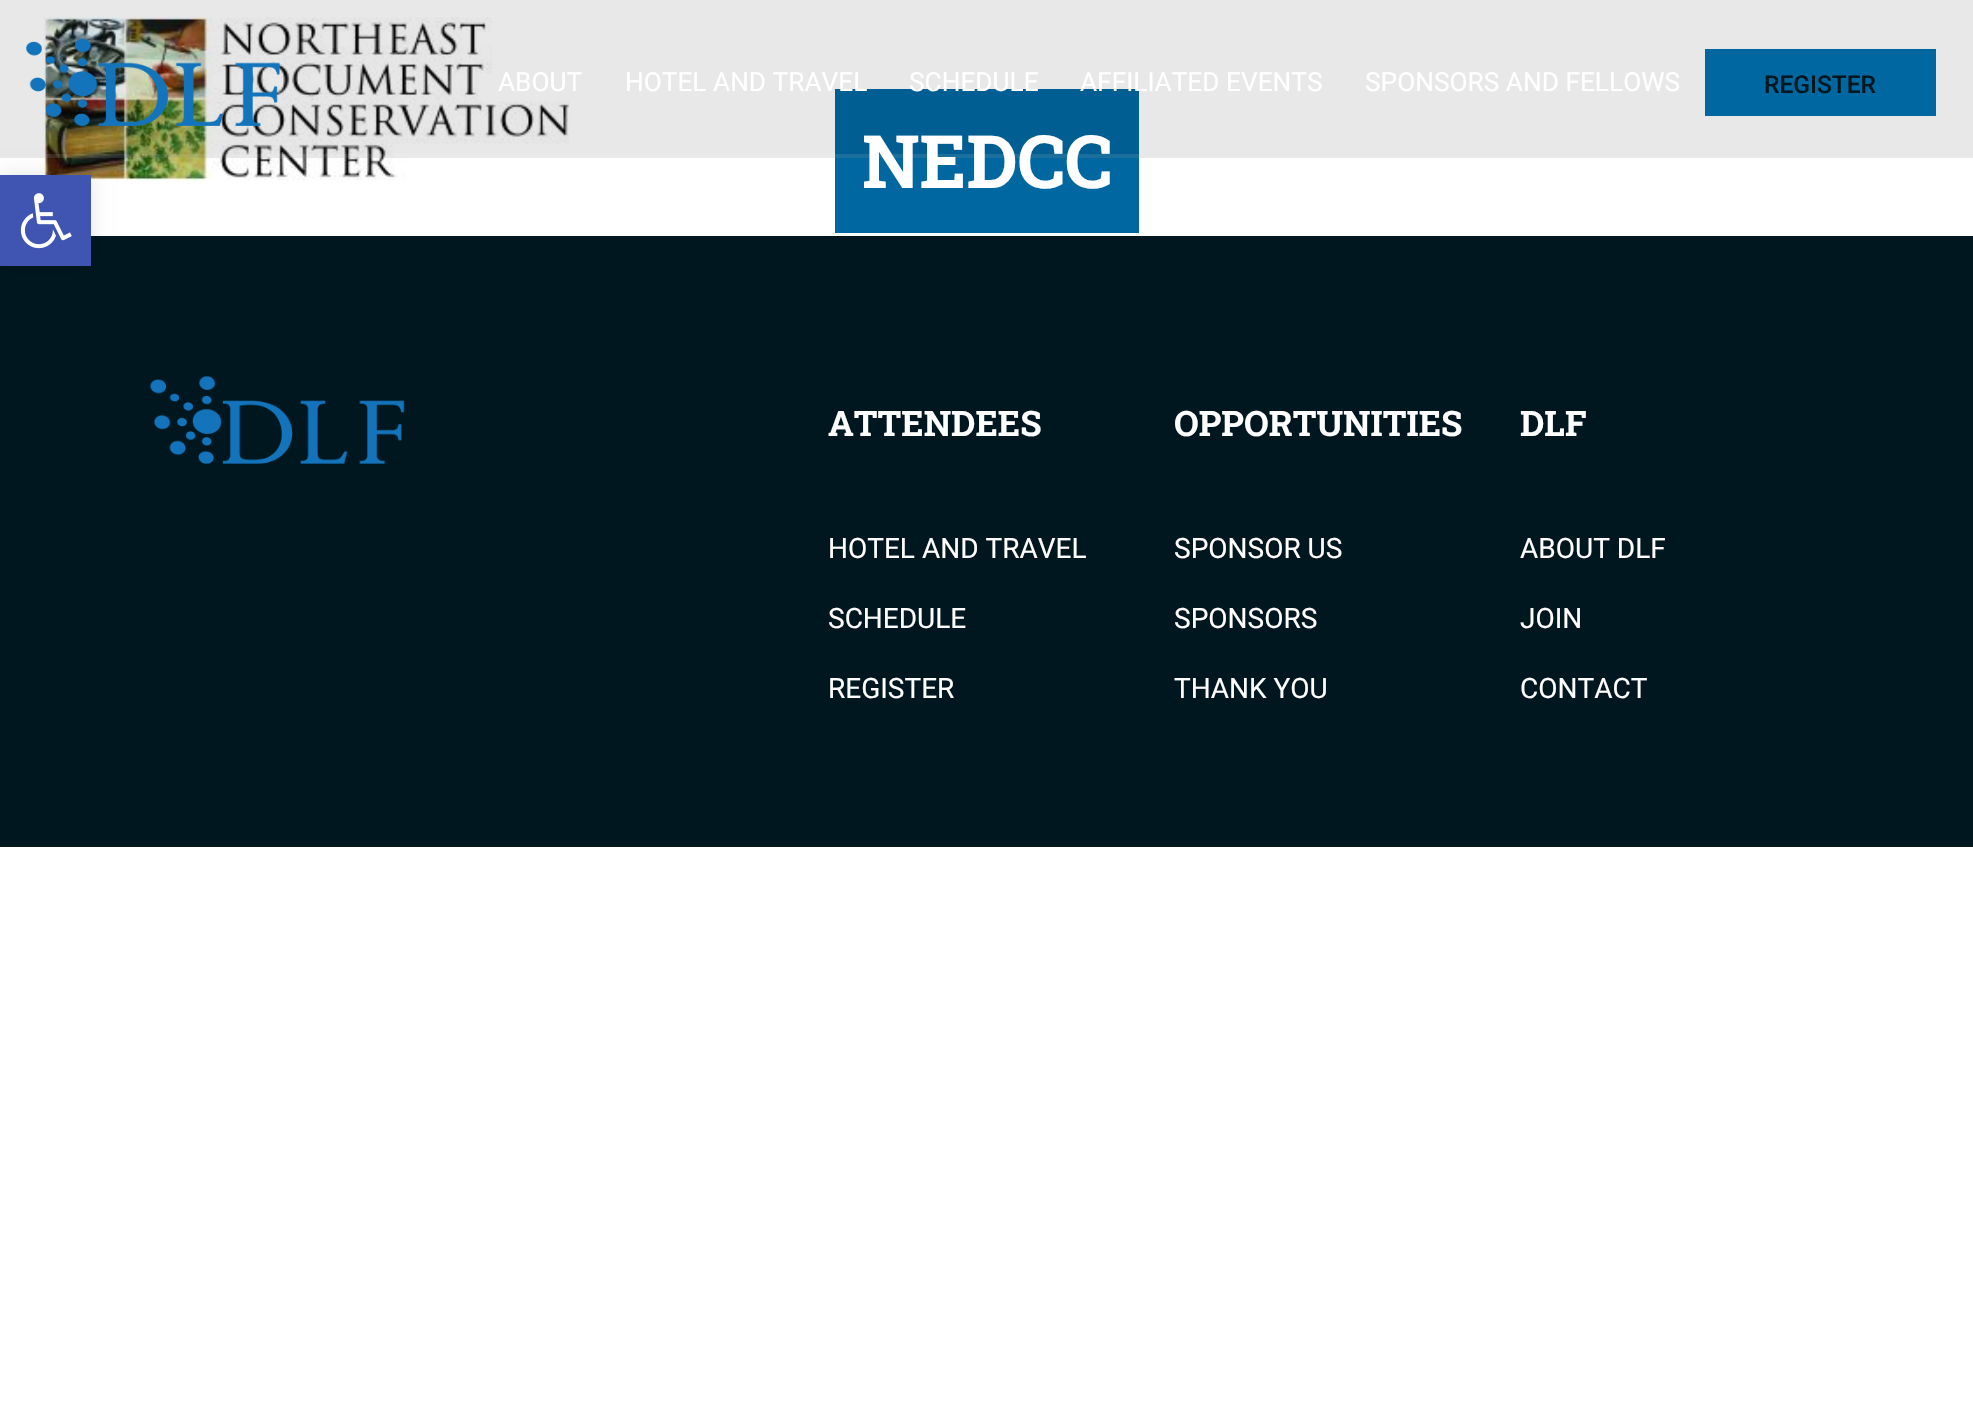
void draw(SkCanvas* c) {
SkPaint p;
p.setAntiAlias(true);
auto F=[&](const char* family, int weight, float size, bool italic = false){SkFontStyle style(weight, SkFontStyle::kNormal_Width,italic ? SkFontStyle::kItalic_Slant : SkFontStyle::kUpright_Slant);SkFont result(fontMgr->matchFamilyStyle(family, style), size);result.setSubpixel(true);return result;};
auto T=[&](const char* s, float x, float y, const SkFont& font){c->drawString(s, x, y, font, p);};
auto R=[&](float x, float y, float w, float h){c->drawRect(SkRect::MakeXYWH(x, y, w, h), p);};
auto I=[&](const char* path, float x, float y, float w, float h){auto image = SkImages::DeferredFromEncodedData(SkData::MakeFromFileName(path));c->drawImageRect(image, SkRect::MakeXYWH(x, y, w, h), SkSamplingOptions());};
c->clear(0xffffffff);
I("3.png",43,17,526,164);
p.setColor(0xff0067a1);
R(835,89,304,144);
p.setColor(0x17000000);
R(0,0,1973,158);
p.setColor(0x1affffff);
R(43,154,1096,4);
p.setColor(0xff00171f);
R(0,236,1973,611);
p.setColor(0x1a000000);
p.setMaskFilter(SkMaskFilter::MakeBlur(kNormal_SkBlurStyle, 9));
c->drawRect(SkRect::MakeXYWH(0,175,91,91),p);
p.setMaskFilter(nullptr);
p.setColor(0xff4054b2);
R(0,175,91,91);
I("1.png",20,193,52,56);
I("2.png",26,38,254,88);
auto f1 = F("Roboto",400,26.25);
p.setColor(0xffffffff);
T("ABOUT",498,91,f1);
T("HOTEL AND TRAVEL",625,91,f1);
T("SCHEDULE",909,91,f1);
T("AFFILIATED EVENTS",1080,91,f1);
T("SPONSORS AND FELLOWS",1365,91,f1);
p.setColor(0xff0067a1);
R(1705,49,231,67);
auto f2 = F("Roboto",500,24.5);
p.setColor(0xff00171f);
T("REGISTER",1764,93,f2);
auto f3 = F("Roboto Slab",700,73.5);
p.setColor(0xffffffff);
T("NEDCC",862,188,f3);
I("4.png",150,376,255,88);
auto f4 = F("Roboto Slab",700,35);
T("ATTENDEES",828,436,f4);
auto f5 = F("Roboto",400,28);
T("HOTEL AND TRAVEL",828,558,f5);
T("SCHEDULE",828,628,f5);
T("REGISTER",828,698,f5);
T("OPPORTUNITIES",1174,436,f4);
T("SPONSOR US",1174,558,f5);
T("SPONSORS",1174,628,f5);
T("THANK YOU",1174,698,f5);
T("DLF",1520,436,f4);
T("ABOUT DLF",1520,558,f5);
T("JOIN",1520,628,f5);
T("CONTACT",1520,698,f5);
}
